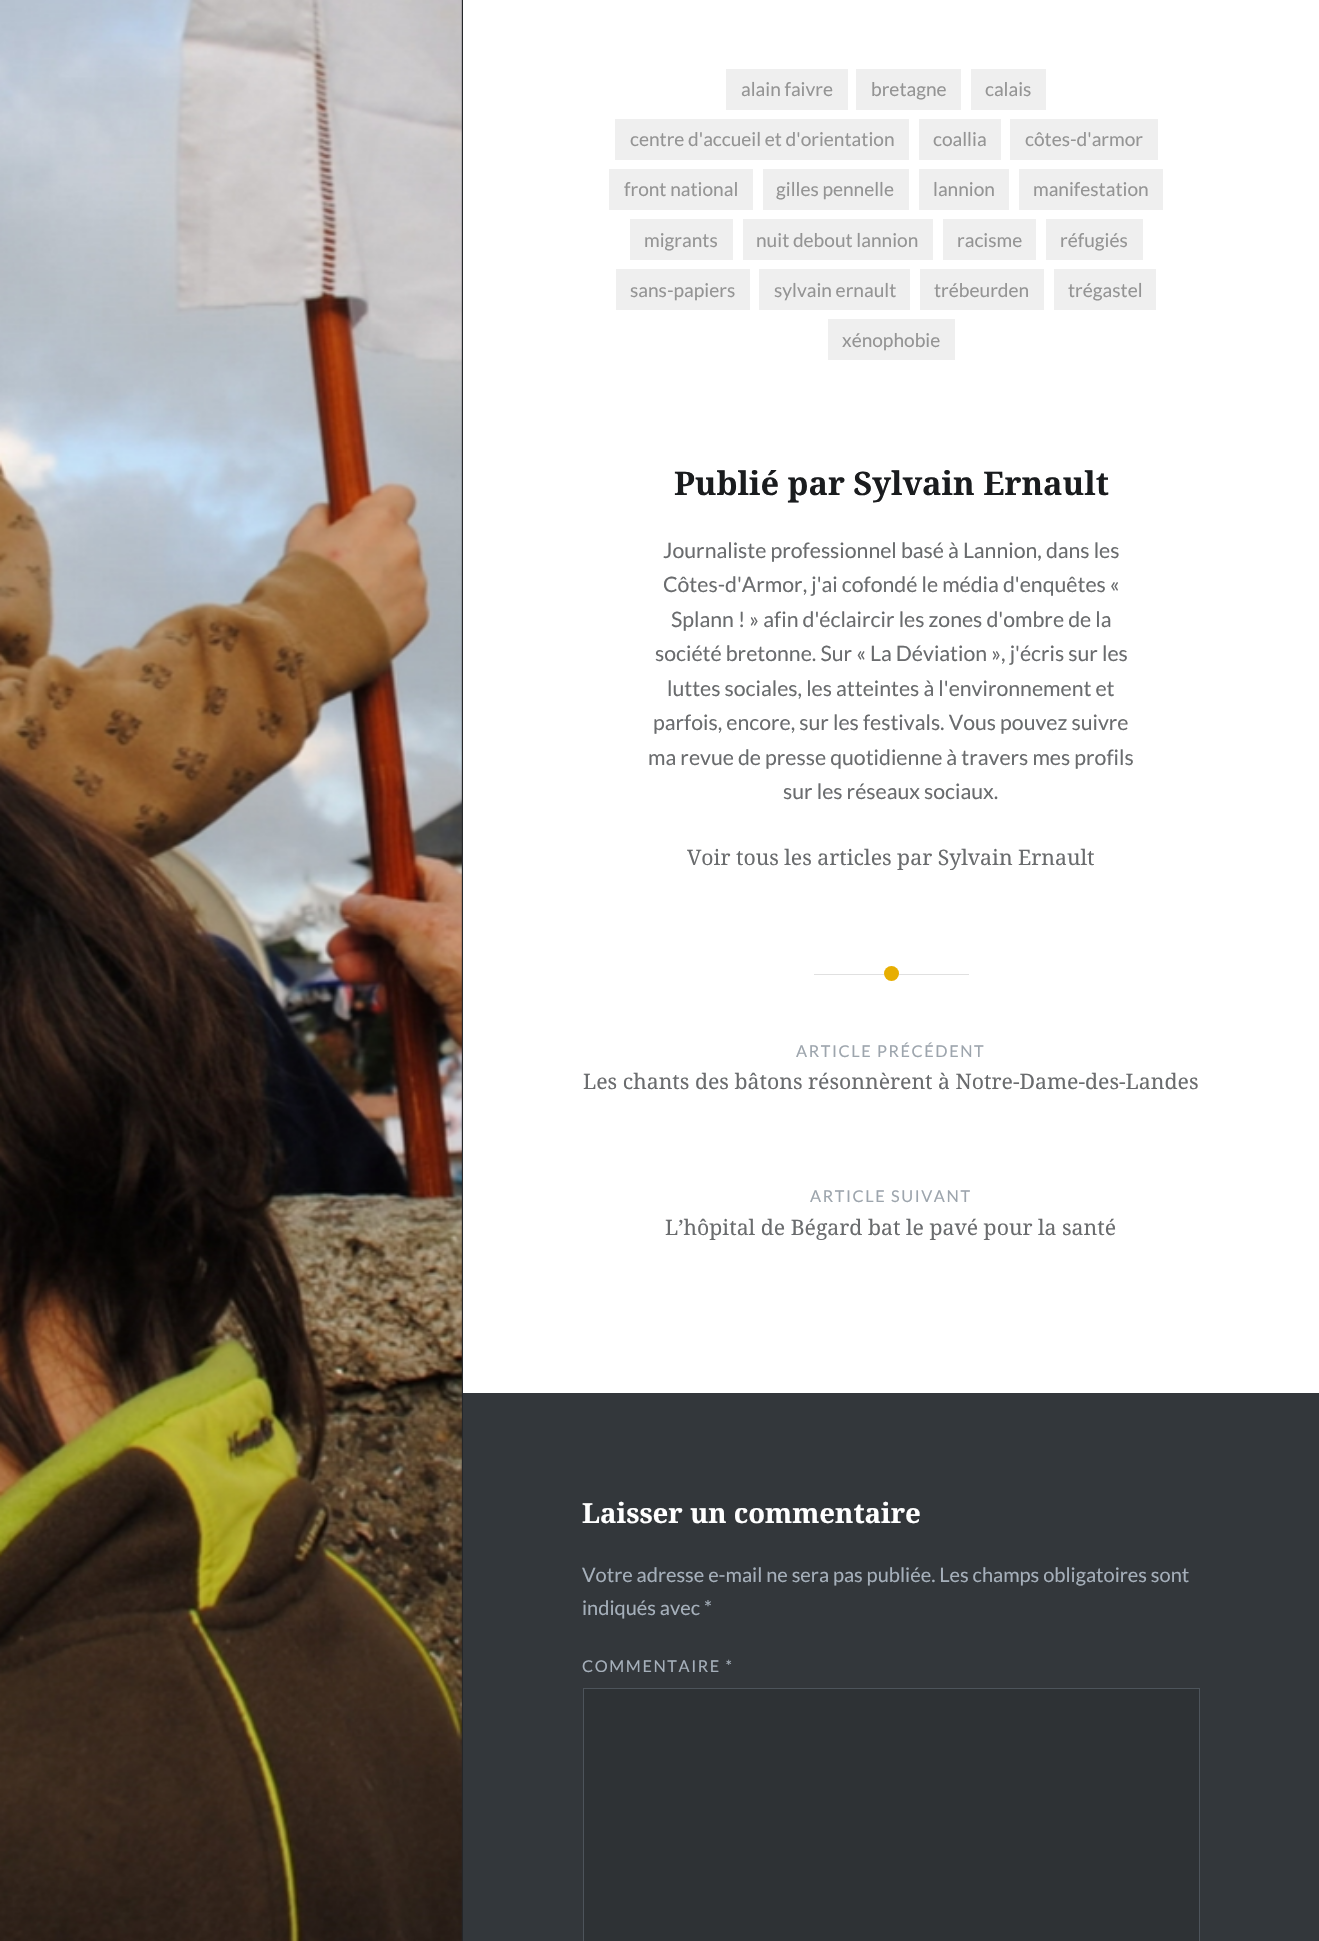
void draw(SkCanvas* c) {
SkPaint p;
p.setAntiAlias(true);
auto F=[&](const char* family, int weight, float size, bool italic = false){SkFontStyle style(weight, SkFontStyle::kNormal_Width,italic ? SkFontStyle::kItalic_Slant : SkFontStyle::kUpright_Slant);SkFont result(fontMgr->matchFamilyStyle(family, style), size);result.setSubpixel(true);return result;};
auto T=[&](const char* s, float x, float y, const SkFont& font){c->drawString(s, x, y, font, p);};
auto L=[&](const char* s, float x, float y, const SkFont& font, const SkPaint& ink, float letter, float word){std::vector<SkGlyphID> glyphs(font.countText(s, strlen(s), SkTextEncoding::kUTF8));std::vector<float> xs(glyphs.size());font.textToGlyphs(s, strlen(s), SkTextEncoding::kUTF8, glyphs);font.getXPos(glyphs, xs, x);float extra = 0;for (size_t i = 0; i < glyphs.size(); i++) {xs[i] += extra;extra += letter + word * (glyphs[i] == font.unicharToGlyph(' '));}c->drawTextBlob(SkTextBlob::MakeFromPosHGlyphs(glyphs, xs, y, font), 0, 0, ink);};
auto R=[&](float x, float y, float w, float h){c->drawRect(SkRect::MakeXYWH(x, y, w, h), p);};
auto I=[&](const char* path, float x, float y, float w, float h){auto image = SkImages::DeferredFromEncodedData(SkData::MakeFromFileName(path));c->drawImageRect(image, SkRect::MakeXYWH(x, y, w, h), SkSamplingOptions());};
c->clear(0xff242629);
p.setColor(0xffffffff);
R(463,0,856,1393);
I("1.png",0,0,462,1941);
p.setColor(0xffefefef);
R(726,69,122,41);
auto f1 = F("Lato",400,19.1);
p.setColor(0xff949494);
T("alain faivre",741,96,f1);
p.setColor(0xffefefef);
R(856,69,105,41);
p.setColor(0xff949494);
T("bretagne",871,96,f1);
p.setColor(0xffefefef);
R(971,69,75,41);
p.setColor(0xff949494);
T("calais",985,96,f1);
p.setColor(0xffefefef);
R(615,119,294,41);
p.setColor(0xff949494);
T("centre d'accueil et d'orientation",630,146,f1);
p.setColor(0xffefefef);
R(919,119,82,41);
p.setColor(0xff949494);
T("coallia",933,146,f1);
p.setColor(0xffefefef);
R(1010,119,148,41);
p.setColor(0xff949494);
T("côtes-d'armor",1025,146,f1);
p.setColor(0xffefefef);
R(609,169,144,41);
p.setColor(0xff949494);
T("front national",624,196,f1);
p.setColor(0xffefefef);
R(763,169,146,41);
p.setColor(0xff949494);
T("gilles pennelle",776,196,f1);
p.setColor(0xffefefef);
R(919,169,90,41);
p.setColor(0xff949494);
T("lannion",933,196,f1);
p.setColor(0xffefefef);
R(1019,169,144,41);
p.setColor(0xff949494);
T("manifestation",1033,196,f1);
p.setColor(0xffefefef);
R(630,219,103,41);
p.setColor(0xff949494);
T("migrants",644,247,f1);
p.setColor(0xffefefef);
R(743,219,190,41);
p.setColor(0xff949494);
T("nuit debout lannion",756,247,f1);
p.setColor(0xffefefef);
R(943,219,93,41);
p.setColor(0xff949494);
T("racisme",957,247,f1);
p.setColor(0xffefefef);
R(1046,219,97,41);
p.setColor(0xff949494);
T("réfugiés",1060,247,f1);
p.setColor(0xffefefef);
R(616,269,134,41);
p.setColor(0xff949494);
T("sans-papiers",630,297,f1);
p.setColor(0xffefefef);
R(759,269,151,41);
p.setColor(0xff949494);
T("sylvain ernault",774,297,f1);
p.setColor(0xffefefef);
R(920,269,124,41);
p.setColor(0xff949494);
T("trébeurden",934,297,f1);
p.setColor(0xffefefef);
R(1054,269,102,41);
p.setColor(0xff949494);
T("trégastel",1068,297,f1);
p.setColor(0xffefefef);
R(828,319,127,41);
p.setColor(0xff949494);
T("xénophobie",842,347,f1);
auto f2 = F("Noto Serif",700,32.5);
p.setColor(0xff1a1c1e);
T("Publié par Sylvain Ernault",674,495,f2);
auto f3 = F("Lato",400,21.25);
p.setColor(0xff6a6c6e);
T("Journaliste professionnel basé à Lannion, dans les",663,558,f3);
T("Côtes-d'Armor, j'ai cofondé le média d'enquêtes «",663,592,f3);
T("Splann ! » afin d'éclaircir les zones d'ombre de la",671,627,f3);
T("société bretonne. Sur « La Déviation », j'écris sur les",655,661,f3);
T("luttes sociales, les atteintes à l'environnement et",667,696,f3);
T("parfois, encore, sur les festivals. Vous pouvez suivre",653,730,f3);
T("ma revue de presse quotidienne à travers mes profils",648,765,f3);
T("sur les réseaux sociaux.",783,799,f3);
auto f4 = F("Noto Serif",400,21.25);
T("Voir tous les articles par Sylvain Ernault",687,865,f4);
p.setColor(0xffe0e0e0);
R(814,974,155,1);
p.setColor(0xffe7ae01);
c->drawCircle(891.5,973.5,7.5,p);
auto f5 = F("Lato",400,16.25);
p.setColor(0xff9da5ad);
L("ARTICLE PRÉCÉDENT",796,1057,f5,p,1.6,0);
p.setColor(0xff6a6c6e);
T("Les chants des bâtons résonnèrent à Notre-Dame-des-Landes",583,1089,f4);
p.setColor(0xff9da5ad);
L("ARTICLE SUIVANT",810,1202,f5,p,1.6,0);
p.setColor(0xff6a6c6e);
T("L’hôpital de Bégard bat le pavé pour la santé",665,1235,f4);
p.setColor(0xff33373b);
R(463,1393,856,548);
auto f6 = F("Noto Serif",700,27.5);
p.setColor(0xffffffff);
T("Laisser un commentaire",582,1523,f6);
auto f7 = F("Lato",400,20);
p.setColor(0xffa5afba);
T("Votre adresse e-mail ne sera pas publiée. Les champs obligatoires sont",582,1582,f7);
T("indiqués avec *",582,1615,f7);
L("COMMENTAIRE *",582,1672,f5,p,1.6,0);
p.setColor(0xff2e3235);
c->drawRect(SkRect::MakeXYWH(583.5,1688.5,616,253),p);
p.setStroke(true);
p.setStrokeWidth(1);
p.setColor(0xff4d545b);
c->drawRect(SkRect::MakeXYWH(583.5,1688.5,616,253),p);
}
